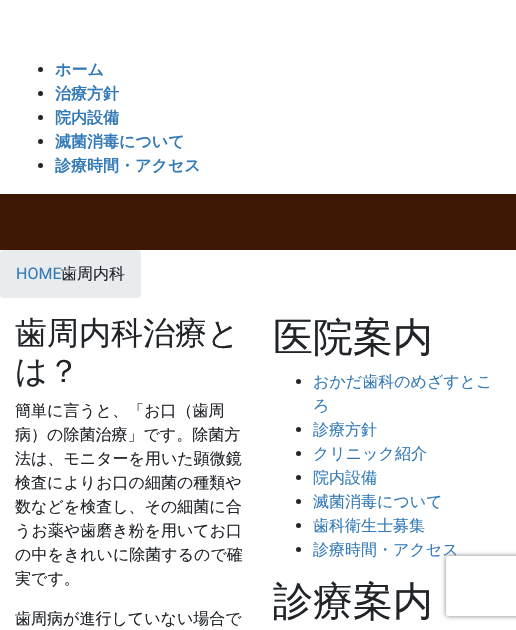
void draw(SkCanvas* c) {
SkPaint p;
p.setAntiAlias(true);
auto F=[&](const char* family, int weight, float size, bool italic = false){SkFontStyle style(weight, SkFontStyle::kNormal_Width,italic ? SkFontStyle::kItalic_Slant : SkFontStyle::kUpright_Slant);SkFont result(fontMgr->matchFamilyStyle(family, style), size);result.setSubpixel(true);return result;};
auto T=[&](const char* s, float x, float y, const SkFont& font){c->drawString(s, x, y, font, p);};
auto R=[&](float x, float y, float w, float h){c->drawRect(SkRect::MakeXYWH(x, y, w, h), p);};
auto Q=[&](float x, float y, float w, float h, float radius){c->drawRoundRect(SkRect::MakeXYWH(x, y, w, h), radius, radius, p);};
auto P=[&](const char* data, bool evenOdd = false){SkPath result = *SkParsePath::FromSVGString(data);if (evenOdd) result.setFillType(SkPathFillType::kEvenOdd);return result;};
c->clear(0xffffffff);
p.setColor(0xff212529);
c->drawCircle(40.5,69.5,2.5,p);
auto f1 = F("WenQuanYi Zen Hei",700,16);
p.setColor(0xff337ab7);
T("ホーム",55,75,f1);
p.setColor(0xff212529);
c->drawCircle(40.5,93.5,2.5,p);
p.setColor(0xff337ab7);
T("治療方針",55,99,f1);
p.setColor(0xff212529);
c->drawCircle(40.5,117.5,2.5,p);
p.setColor(0xff337ab7);
T("院内設備",55,123,f1);
p.setColor(0xff212529);
c->drawCircle(40.5,141.5,2.5,p);
p.setColor(0xff337ab7);
T("滅菌消毒について",55,147,f1);
p.setColor(0xff212529);
c->drawCircle(40.5,165.5,2.5,p);
p.setColor(0xff337ab7);
T("診療時間・アクセス",55,171,f1);
p.setColor(0xff3e1705);
R(0,194,516,56);
p.setColor(0xffe9ecef);
Q(0,250,141,48,4);
auto f2 = F("Roboto",400,16);
p.setColor(0xff337ab7);
T("HOME",16,279,f2);
auto f3 = F("WenQuanYi Zen Hei",500,16);
p.setColor(0xff212529);
T("歯周内科",61,279,f3);
auto f4 = F("WenQuanYi Zen Hei",500,32);
T("歯周内科治療と",15,344,f4);
T("は？",15,382,f4);
T("簡単に言うと、「お口（歯周",15,416,f3);
T("病）の除菌治療」です。除菌方",15,440,f3);
T("法は、モニターを用いた顕微鏡",15,464,f3);
T("検査によりお口の細菌の種類や",15,488,f3);
T("数などを検査し、その細菌に合",15,512,f3);
T("うお薬や歯磨き粉を用いてお口",15,536,f3);
T("の中をきれいに除菌するので確",15,560,f3);
T("実です。",15,584,f3);
T("歯周病が進行していない場合で",15,624,f3);
auto f5 = F("WenQuanYi Zen Hei",500,40);
T("医院案内",273,351,f5);
c->drawCircle(298.5,381.5,2.5,p);
p.setColor(0xff337ab7);
T("おかだ歯科のめざすとこ",313,387,f3);
T("ろ",313,411,f3);
p.setColor(0xff212529);
c->drawCircle(298.5,429.5,2.5,p);
p.setColor(0xff337ab7);
T("診療方針",313,435,f3);
p.setColor(0xff212529);
c->drawCircle(298.5,453.5,2.5,p);
p.setColor(0xff337ab7);
T("クリニック紹介",313,459,f3);
p.setColor(0xff212529);
c->drawCircle(298.5,477.5,2.5,p);
p.setColor(0xff337ab7);
T("院内設備",313,483,f3);
p.setColor(0xff212529);
c->drawCircle(298.5,501.5,2.5,p);
p.setColor(0xff337ab7);
T("滅菌消毒について",313,507,f3);
p.setColor(0xff212529);
c->drawCircle(298.5,525.5,2.5,p);
p.setColor(0xff337ab7);
T("歯科衛生士募集",313,531,f3);
p.setColor(0xff212529);
c->drawCircle(298.5,549.5,2.5,p);
p.setColor(0xff337ab7);
T("診療時間・アクセス",313,555,f3);
p.setColor(0xff212529);
T("診療案内",273,615,f5);
c->save();
c->clipPath(P("M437 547h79v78h-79zm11 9h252c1 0 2 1 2 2v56c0 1-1 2-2 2h-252c-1 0-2-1-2-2v-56c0-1 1-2 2-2z",true),true);
p.setColor(0xff808080);
p.setMaskFilter(SkMaskFilter::MakeBlur(kNormal_SkBlurStyle, 2.5));
c->drawRoundRect(SkRect::MakeXYWH(446,556,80,60),2,2,p);
p.setMaskFilter(nullptr);
c->restore();
}
